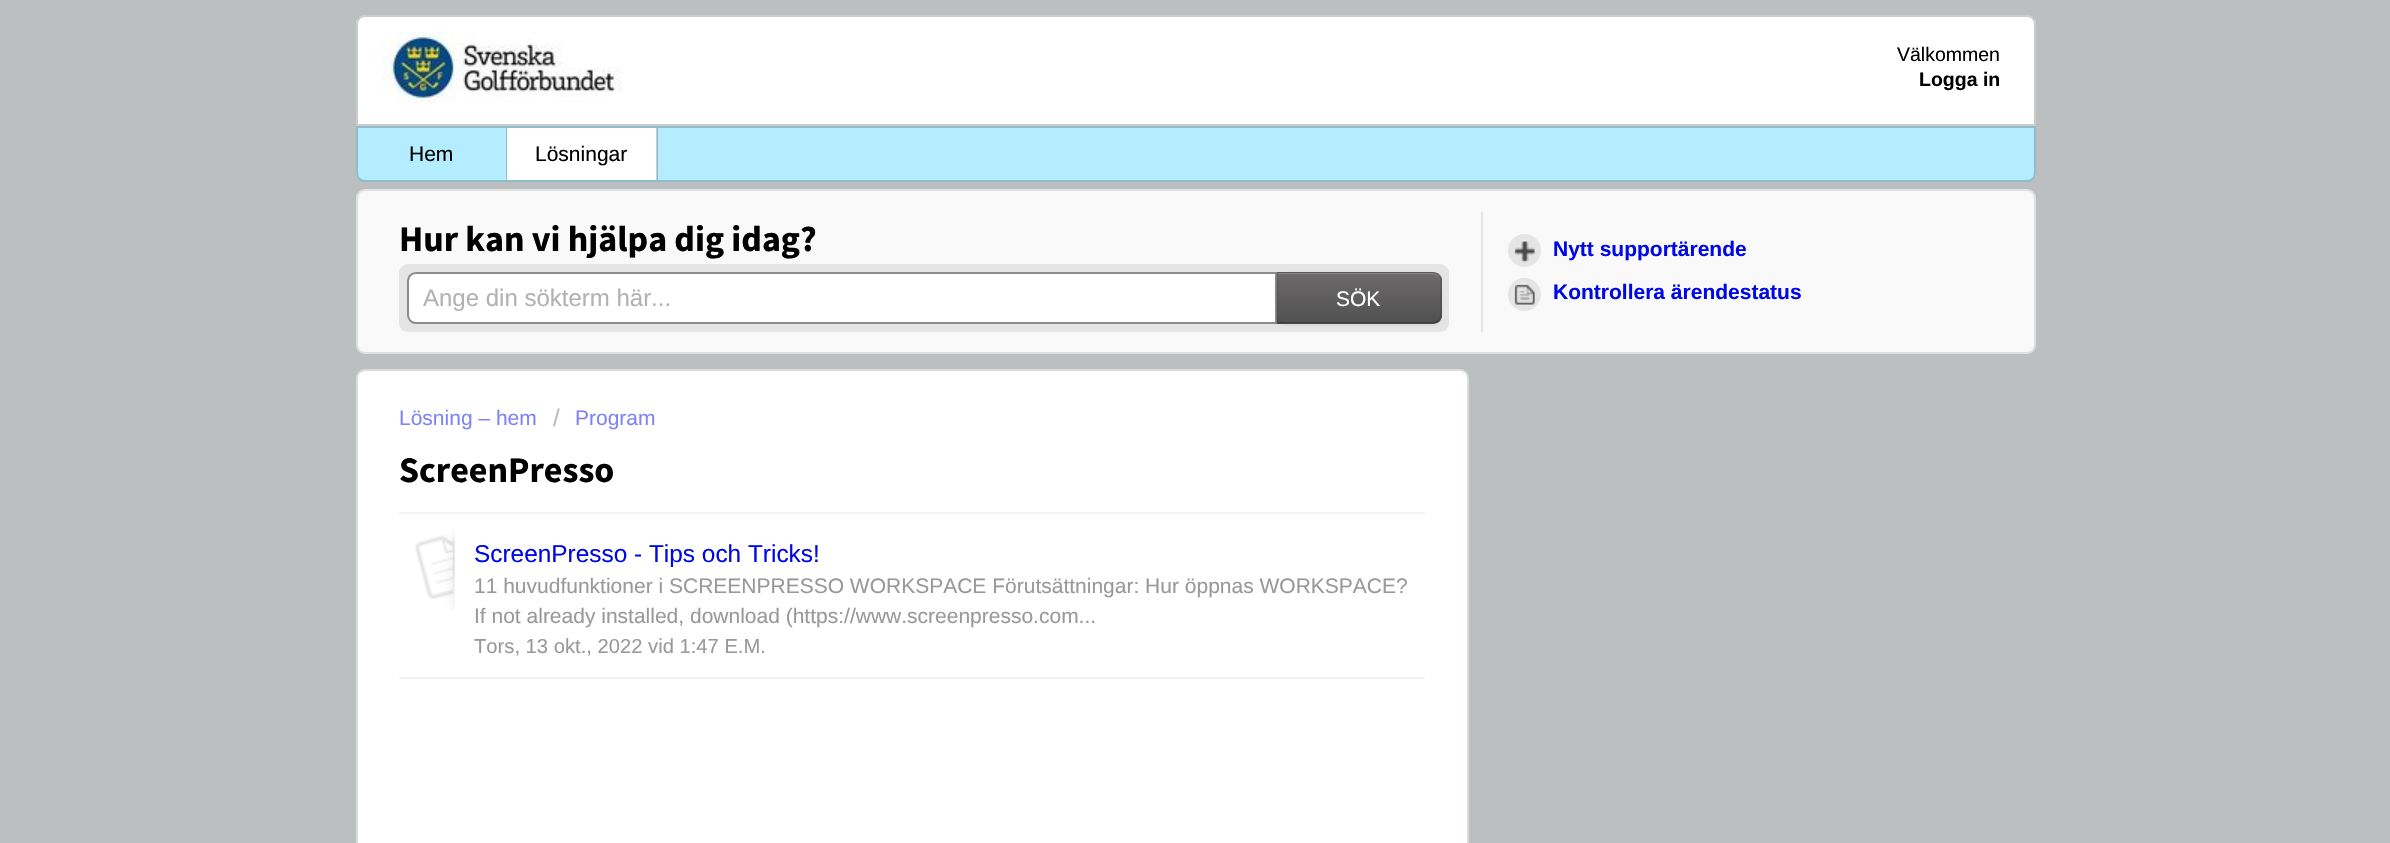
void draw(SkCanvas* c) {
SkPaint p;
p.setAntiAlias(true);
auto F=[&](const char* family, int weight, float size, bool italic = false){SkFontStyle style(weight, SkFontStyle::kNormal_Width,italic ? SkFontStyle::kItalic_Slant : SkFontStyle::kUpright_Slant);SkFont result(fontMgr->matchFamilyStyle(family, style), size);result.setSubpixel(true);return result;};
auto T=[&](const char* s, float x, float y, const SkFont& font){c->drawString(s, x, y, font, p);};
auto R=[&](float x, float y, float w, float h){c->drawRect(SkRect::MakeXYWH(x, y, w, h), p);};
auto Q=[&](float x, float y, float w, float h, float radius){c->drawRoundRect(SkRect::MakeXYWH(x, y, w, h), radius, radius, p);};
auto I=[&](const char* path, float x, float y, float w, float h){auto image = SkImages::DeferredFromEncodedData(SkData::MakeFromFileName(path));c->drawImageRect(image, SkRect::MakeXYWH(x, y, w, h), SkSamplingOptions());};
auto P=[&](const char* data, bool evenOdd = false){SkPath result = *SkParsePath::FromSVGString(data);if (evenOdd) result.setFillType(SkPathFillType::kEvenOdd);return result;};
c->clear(0xffbcbfbf);
p.setColor(0xffffffff);
c->drawPath(P("M365 15h1662c5 0 9 4 9 9v102h-1680v-102c0-5 4-9 9-9z"),p);
p.setStroke(true);
p.setStrokeWidth(2);
p.setColor(0x33000000);
c->drawPath(P("M365 16h1662c4.5 0 8 3.5 8 8v101h-1678v-101c0-4.5 3.5-8 8-8z"),p);
I("1.png",382,31,241,73);
auto f1 = F("Liberation Sans",400,19.5);
p.setStroke(false);
p.setColor(0xff000000);
T("Välkommen",1897,61,f1);
auto f2 = F("Liberation Sans",700,19.5);
T("Logga in",1919,86,f2);
p.setColor(0xffb4edff);
c->drawPath(P("M356 126h1680v47c0 5-4 9-9 9h-1662c-5 0-9-4-9-9z"),p);
p.setColor(0xff90becc);
R(657,128,1,52);
p.setStroke(true);
p.setColor(0x33000000);
c->drawPath(P("M357 127h1678v46c0 4.5-3.5 8-8 8h-1662c-4.5 0-8-3.5-8-8z"),p);
p.setStroke(false);
p.setColor(0xff90becc);
R(506,128,1,52);
auto f3 = F("Liberation Sans",400,21);
p.setColor(0xff000000);
T("Hem",409,161,f3);
p.setColor(0xffffffff);
R(507,128,149,52);
p.setColor(0xffcccccc);
R(656,128,1,52);
p.setColor(0xff000000);
T("Lösningar",535,161,f3);
p.setColor(0xfff9f9f9);
c->drawRoundRect(SkRect::MakeXYWH(357,190,1678,163),8,8,p);
p.setStroke(true);
p.setColor(0xffe0e0e0);
c->drawRoundRect(SkRect::MakeXYWH(357,190,1678,163),8,8,p);
p.setStroke(false);
p.setColor(0xffe5e5e5);
R(1481,212,2,120);
auto f4 = F("Source Sans Pro",700,36);
p.setColor(0xff000000);
T("Hur kan vi hjälpa dig idag?",399,251,f4);
p.setColor(0xffe5e5e5);
Q(399,264,1050,68,9);
p.setColor(0xffffffff);
c->drawPath(P("M416 273h860v50h-860c-4.5 0-8-3.5-8-8v-34c0-4.5 3.5-8 8-8z"),p);
p.setStroke(true);
p.setColor(0xff8c8c8c);
c->drawPath(P("M416 273h860v50h-860c-4.5 0-8-3.5-8-8v-34c0-4.5 3.5-8 8-8z"),p);
auto f5 = F("Liberation Sans",400,24);
p.setStroke(false);
p.setColor(0xffb2b2b2);
T("Ange din sökterm här...",423,306,f5);
p.setColor(0x0d000000);
p.setMaskFilter(SkMaskFilter::MakeBlur(kNormal_SkBlurStyle, 1.5));
c->drawRoundRect(SkRect::MakeXYWH(1277,273,165,53),9,9,p);
p.setMaskFilter(nullptr);
p.setColor(0xff626060);
c->drawPath(P("M1277 272h156c5 0 9 4 9 9v34c0 5-4 9-9 9h-156z"),p);
c->save();
c->clipPath(P("M1277 272h156c5 0 9 4 9 9v34c0 5-4 9-9 9h-156z"),true);
{
const SkColor colors[] = {0xff6c6a6a,0xff525151};
const float stops[] = {0,1};
const SkPoint ends[] = {{1359,273}, {1359,323}};
p.setShader(SkGradientShader::MakeLinear(ends, colors, stops, 2, SkTileMode::kClamp));
p.setAlpha(255);
}
R(1277,273,165,50);
c->restore();
p.setShader(nullptr);
p.setColor(0xff898888);
c->drawPath(P("M1278 274h154c5 0 8 4 8 8v-1c0-4-4-8-8-8h-154z"),p);
p.setColor(0x1a000000);
c->drawPath(P("M1278 273h156l4 2l1-1c-2-1-5-2-7-2h-155z"),p);
c->drawPath(P("M1439 274l3 4v40l-3 3l-1-1c1-1 2-3 2-5v-35c0-2-1-4-2-5z"),p);
p.setColor(0x40000000);
c->drawPath(P("M1276 324h156c2 0 5-1 7-3l-1-1c-2 1-4 2-6 2h-154z"),p);
p.setColor(0x1a000000);
c->drawPath(P("M1278 273l-2-1v52l2-2z"),p);
p.setColor(0xffffffff);
T("SÖK",1336,306,f3);
p.setColor(0xffe5e5e5);
c->drawCircle(1524.5,250.5,16.5,p);
I("2.png",1513,240,22,22);
auto f6 = F("Liberation Sans",700,21);
p.setColor(0xff0008e7);
T("Nytt supportärende",1553,256,f6);
p.setColor(0xffe5e5e5);
c->drawCircle(1524.5,294.5,16.5,p);
I("3.png",1513,283,22,22);
p.setColor(0xff0008e7);
T("Kontrollera ärendestatus",1553,299,f6);
p.setColor(0xffffffff);
c->drawRoundRect(SkRect::MakeXYWH(357,370,1111,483),8,8,p);
p.setStroke(true);
p.setColor(0xffdcdcdc);
c->drawRoundRect(SkRect::MakeXYWH(357,370,1111,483),8,8,p);
p.setStroke(false);
p.setColor(0xff8084f3);
T("Lösning – hem",399,425,f3);
p.setColor(0xffbbbbbb);
T("/",553,426,f5);
p.setColor(0xff8084f3);
T("Program",575,425,f3);
p.setColor(0xff000000);
T("ScreenPresso",399,482,f4);
p.setColor(0xfff3f3f3);
R(399,677,1026,2);
R(399,512,1026,2);
I("4.png",415,531,40,80);
auto f7 = F("Liberation Sans",400,24.4);
p.setColor(0xff0008e7);
T("ScreenPresso - Tips och Tricks!",474,562,f7);
p.setColor(0xff999999);
T("11 huvudfunktioner i SCREENPRESSO WORKSPACE Förutsättningar: Hur öppnas WORKSPACE?",474,593,f3);
T("If not already installed, download (https://www.screenpresso.com...",474,623,f3);
auto f8 = F("Liberation Sans",400,20.2);
T("Tors, 13 okt., 2022 vid 1:47 E.M.",474,653,f8);
}
